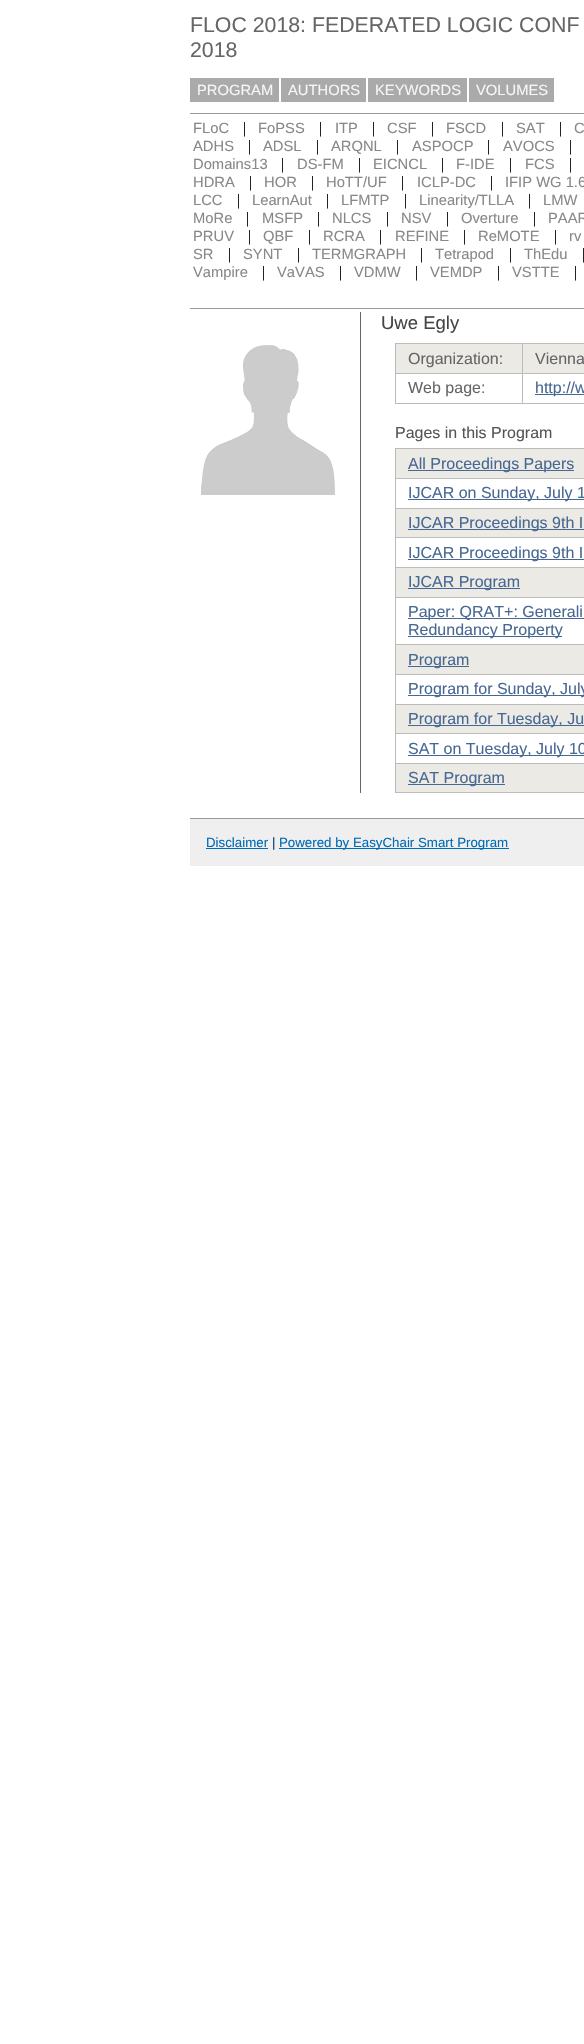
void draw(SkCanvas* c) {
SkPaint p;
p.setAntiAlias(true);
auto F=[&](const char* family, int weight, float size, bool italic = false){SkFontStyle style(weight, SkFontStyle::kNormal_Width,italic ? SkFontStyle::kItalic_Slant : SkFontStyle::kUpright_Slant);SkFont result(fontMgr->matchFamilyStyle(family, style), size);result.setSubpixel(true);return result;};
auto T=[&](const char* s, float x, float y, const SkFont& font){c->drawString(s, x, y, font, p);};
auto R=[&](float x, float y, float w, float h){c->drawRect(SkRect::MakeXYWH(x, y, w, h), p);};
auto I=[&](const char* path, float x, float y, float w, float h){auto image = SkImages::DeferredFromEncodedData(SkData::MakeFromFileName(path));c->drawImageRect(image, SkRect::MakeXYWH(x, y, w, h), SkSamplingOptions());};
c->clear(0xffffffff);
auto f1 = F("Liberation Sans",400,21.3);
p.setColor(0xff666666);
T("FLOC 2018: FEDERATED LOGIC CONF",190,32,f1);
T("2018",190,57,f1);
p.setColor(0xffaaaaaa);
R(190,78,89,24);
auto f2 = F("Liberation Sans",400,14.75);
p.setColor(0xfff6f6f6);
T("PROGRAM",197,95,f2);
p.setColor(0xffaaaaaa);
R(281,78,85,24);
p.setColor(0xfff6f6f6);
T("AUTHORS",288,95,f2);
p.setColor(0xffaaaaaa);
R(368,78,99,24);
p.setColor(0xfff6f6f6);
T("KEYWORDS",375,95,f2);
p.setColor(0xffaaaaaa);
R(469,78,85,24);
p.setColor(0xfff6f6f6);
T("VOLUMES",476,95,f2);
p.setColor(0xff999999);
R(190,113,394,1);
p.setColor(0xff888888);
T("FLoC",193,133,f2);
auto f3 = F("Liberation Serif",400,16);
p.setColor(0xff000000);
T("|",243,133,f3);
p.setColor(0xff888888);
T("FoPSS",258,133,f2);
p.setColor(0xff000000);
T("|",319,133,f3);
p.setColor(0xff888888);
T("ITP",335,133,f2);
p.setColor(0xff000000);
T("|",372,133,f3);
p.setColor(0xff888888);
T("CSF",387,133,f2);
p.setColor(0xff000000);
T("|",431,133,f3);
p.setColor(0xff888888);
T("FSCD",446,133,f2);
p.setColor(0xff000000);
T("|",501,133,f3);
p.setColor(0xff888888);
T("SAT",516,133,f2);
p.setColor(0xff000000);
T("|",559,133,f3);
p.setColor(0xff888888);
T("C",574,133,f2);
T("ADHS",193,151,f2);
p.setColor(0xff000000);
T("|",248,151,f3);
p.setColor(0xff888888);
T("ADSL",263,151,f2);
p.setColor(0xff000000);
T("|",316,151,f3);
p.setColor(0xff888888);
T("ARQNL",331,151,f2);
p.setColor(0xff000000);
T("|",396,151,f3);
p.setColor(0xff888888);
T("ASPOCP",412,151,f2);
p.setColor(0xff000000);
T("|",487,151,f3);
p.setColor(0xff888888);
T("AVOCS",503,151,f2);
p.setColor(0xff000000);
T("|",569,151,f3);
p.setColor(0xff888888);
T("Domains13",193,169,f2);
p.setColor(0xff000000);
T("|",281,169,f3);
p.setColor(0xff888888);
T("DS-FM",297,169,f2);
p.setColor(0xff000000);
T("|",358,169,f3);
p.setColor(0xff888888);
T("EICNCL",373,169,f2);
p.setColor(0xff000000);
T("|",441,169,f3);
p.setColor(0xff888888);
T("F-IDE",456,169,f2);
p.setColor(0xff000000);
T("|",509,169,f3);
p.setColor(0xff888888);
T("FCS",525,169,f2);
p.setColor(0xff000000);
T("|",569,169,f3);
p.setColor(0xff888888);
T("HDRA",193,187,f2);
p.setColor(0xff000000);
T("|",249,187,f3);
p.setColor(0xff888888);
T("HOR",264,187,f2);
p.setColor(0xff000000);
T("|",311,187,f3);
p.setColor(0xff888888);
T("HoTT/UF",326,187,f2);
p.setColor(0xff000000);
T("|",401,187,f3);
p.setColor(0xff888888);
T("ICLP-DC",417,187,f2);
p.setColor(0xff000000);
T("|",490,187,f3);
p.setColor(0xff888888);
T("IFIP WG 1.6",505,187,f2);
T("LCC",193,205,f2);
p.setColor(0xff000000);
T("|",237,205,f3);
p.setColor(0xff888888);
T("LearnAut",252,205,f2);
p.setColor(0xff000000);
T("|",326,205,f3);
p.setColor(0xff888888);
T("LFMTP",341,205,f2);
p.setColor(0xff000000);
T("|",404,205,f3);
p.setColor(0xff888888);
T("Linearity/TLLA",419,205,f2);
p.setColor(0xff000000);
T("|",528,205,f3);
p.setColor(0xff888888);
T("LMW",543,205,f2);
T("MoRe",193,223,f2);
p.setColor(0xff000000);
T("|",246,223,f3);
p.setColor(0xff888888);
T("MSFP",262,223,f2);
p.setColor(0xff000000);
T("|",317,223,f3);
p.setColor(0xff888888);
T("NLCS",332,223,f2);
p.setColor(0xff000000);
T("|",386,223,f3);
p.setColor(0xff888888);
T("NSV",401,223,f2);
p.setColor(0xff000000);
T("|",446,223,f3);
p.setColor(0xff888888);
T("Overture",461,223,f2);
p.setColor(0xff000000);
T("|",533,223,f3);
p.setColor(0xff888888);
T("PAAR",548,223,f2);
T("PRUV",193,241,f2);
p.setColor(0xff000000);
T("|",248,241,f3);
p.setColor(0xff888888);
T("QBF",263,241,f2);
p.setColor(0xff000000);
T("|",308,241,f3);
p.setColor(0xff888888);
T("RCRA",323,241,f2);
p.setColor(0xff000000);
T("|",379,241,f3);
p.setColor(0xff888888);
T("REFINE",395,241,f2);
p.setColor(0xff000000);
T("|",463,241,f3);
p.setColor(0xff888888);
T("ReMOTE",478,241,f2);
p.setColor(0xff000000);
T("|",554,241,f3);
p.setColor(0xff888888);
T("rv",569,241,f2);
T("SR",193,259,f2);
p.setColor(0xff000000);
T("|",228,259,f3);
p.setColor(0xff888888);
T("SYNT",243,259,f2);
p.setColor(0xff000000);
T("|",297,259,f3);
p.setColor(0xff888888);
T("TERMGRAPH",312,259,f2);
p.setColor(0xff000000);
T("|",420,259,f3);
p.setColor(0xff888888);
T("Tetrapod",435,259,f2);
p.setColor(0xff000000);
T("|",509,259,f3);
p.setColor(0xff888888);
T("ThEdu",524,259,f2);
p.setColor(0xff000000);
T("|",582,259,f3);
p.setColor(0xff888888);
T("Vampire",193,277,f2);
p.setColor(0xff000000);
T("|",262,277,f3);
p.setColor(0xff888888);
T("VaVAS",277,277,f2);
p.setColor(0xff000000);
T("|",339,277,f3);
p.setColor(0xff888888);
T("VDMW",354,277,f2);
p.setColor(0xff000000);
T("|",415,277,f3);
p.setColor(0xff888888);
T("VEMDP",430,277,f2);
p.setColor(0xff000000);
T("|",497,277,f3);
p.setColor(0xff888888);
T("VSTTE",512,277,f2);
p.setColor(0xff000000);
T("|",574,277,f3);
p.setColor(0xff999999);
R(190,308,394,1);
I("1.png",201,345,134,150);
p.setColor(0xff666666);
R(360,312,1,481);
auto f4 = F("Liberation Sans",400,18.5);
p.setColor(0xff444444);
T("Uwe Egly",381,329,f4);
p.setColor(0xffebeae5);
R(396,344,188,29);
p.setColor(0xffbcbcbc);
R(395,343,189,1);
auto f5 = F("Liberation Sans",400,16);
p.setColor(0xff666666);
T("Organization:",408,364,f5);
p.setColor(0xffbcbcbc);
R(522,373,62,1);
R(395,403,189,1);
R(522,373,1,31);
R(395,373,128,1);
R(522,343,1,31);
p.setColor(0xff666666);
T("Vienna",535,364,f5);
p.setColor(0xffbcbcbc);
R(395,343,1,61);
p.setColor(0xff666666);
T("Web page:",408,393,f5);
p.setColor(0xff486894);
R(535,394,49,1);
T("http://w",535,393,f5);
p.setColor(0xff555555);
T("Pages in this Program",395,438,f5);
p.setColor(0xffebeae5);
R(396,449,188,29);
p.setColor(0xffbcbcbc);
R(395,448,189,1);
p.setColor(0xff486894);
R(408,470,166,1);
T("All Proceedings Papers",408,469,f5);
p.setColor(0xffbcbcbc);
R(395,478,189,1);
R(395,508,189,1);
R(395,537,189,1);
R(395,567,189,1);
R(395,597,189,1);
R(395,644,189,1);
R(395,674,189,1);
R(395,704,189,1);
R(395,733,189,1);
R(395,763,189,1);
R(395,792,189,1);
R(395,763,1,30);
R(395,733,1,31);
R(395,704,1,30);
R(395,674,1,31);
R(395,644,1,31);
R(395,597,1,48);
R(395,567,1,31);
R(395,537,1,31);
R(395,508,1,30);
R(395,448,1,61);
p.setColor(0xff486894);
R(408,499,176,1);
T("IJCAR on Sunday, July 1",408,498,f5);
p.setColor(0xffebeae5);
R(396,509,188,28);
p.setColor(0xff486894);
R(408,529,176,1);
T("IJCAR Proceedings 9th I",408,528,f5);
R(408,559,176,1);
T("IJCAR Proceedings 9th I",408,558,f5);
p.setColor(0xffebeae5);
R(396,568,188,29);
p.setColor(0xff486894);
R(408,588,112,1);
T("IJCAR Program",408,587,f5);
R(408,618,176,1);
T("Paper: QRAT+: Generali",408,617,f5);
R(408,636,154,1);
T("Redundancy Property",408,635,f5);
p.setColor(0xffebeae5);
R(396,645,188,29);
p.setColor(0xff486894);
R(408,666,61,1);
T("Program",408,665,f5);
R(408,695,176,1);
T("Program for Sunday, July",408,694,f5);
p.setColor(0xffebeae5);
R(396,705,188,28);
p.setColor(0xff486894);
R(408,725,176,1);
T("Program for Tuesday, Ju",408,724,f5);
R(408,755,176,1);
T("SAT on Tuesday, July 10",408,754,f5);
p.setColor(0xffebeae5);
R(396,764,188,28);
p.setColor(0xff486894);
R(408,784,97,1);
T("SAT Program",408,783,f5);
p.setColor(0xffefefef);
R(190,819,394,47);
p.setColor(0xff999999);
R(190,818,394,1);
auto f6 = F("Liberation Sans",400,13.3);
p.setColor(0xff006bb6);
T("Disclaimer",206,847,f6);
R(206,848,62,1);
p.setColor(0xff043f76);
T("|",272,847,f6);
p.setColor(0xff006bb6);
R(279,848,230,1);
T("Powered by EasyChair Smart Program",279,847,f6);
}
